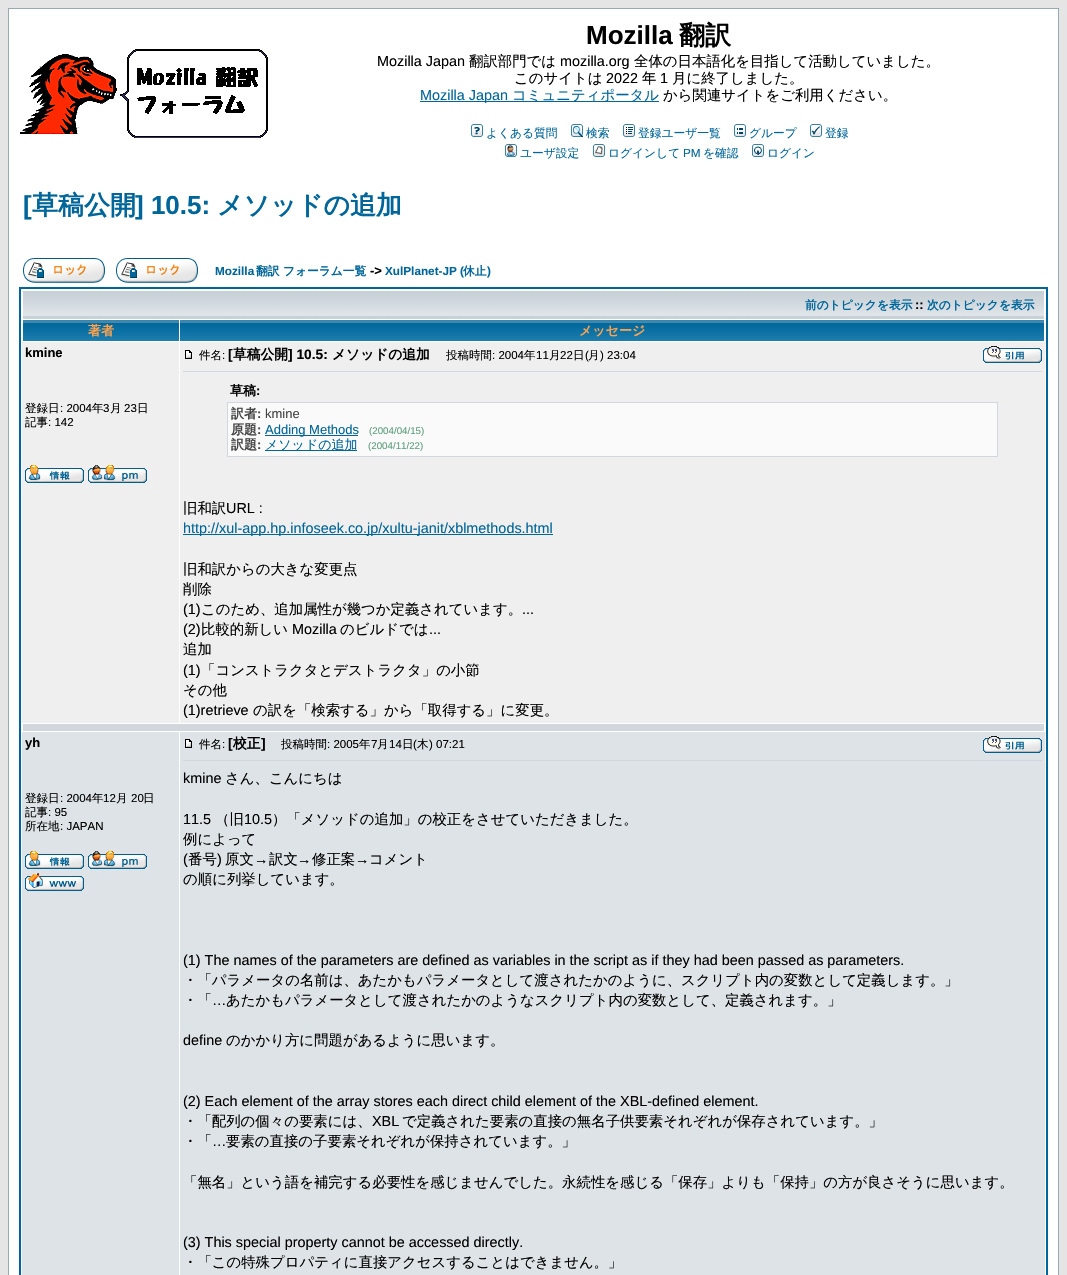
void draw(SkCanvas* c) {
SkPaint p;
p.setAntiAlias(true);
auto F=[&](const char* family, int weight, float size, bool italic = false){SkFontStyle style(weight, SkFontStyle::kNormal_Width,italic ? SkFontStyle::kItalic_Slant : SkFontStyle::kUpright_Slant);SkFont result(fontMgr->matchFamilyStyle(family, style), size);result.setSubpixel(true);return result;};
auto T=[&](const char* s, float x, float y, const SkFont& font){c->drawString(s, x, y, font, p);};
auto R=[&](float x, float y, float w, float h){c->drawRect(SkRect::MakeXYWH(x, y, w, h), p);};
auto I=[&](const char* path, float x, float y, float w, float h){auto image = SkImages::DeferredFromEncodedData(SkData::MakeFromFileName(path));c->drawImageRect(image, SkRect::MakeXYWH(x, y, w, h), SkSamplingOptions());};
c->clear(0xffe5e5e5);
p.setColor(0xffffffff);
c->drawRect(SkRect::MakeXYWH(8.5,8.5,1050,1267),p);
p.setStroke(true);
p.setStrokeWidth(1);
p.setColor(0xff98aab1);
c->drawRect(SkRect::MakeXYWH(8.5,8.5,1050,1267),p);
I("1.png",20,49,248,89);
auto f1 = F("Liberation Sans",700,26);
p.setStroke(false);
p.setColor(0xff000000);
T("Mozilla",586,44,f1);
auto f2 = F("WenQuanYi Zen Hei",700,26);
T("翻訳",679,44,f2);
auto f3 = F("Liberation Sans",400,14.4);
T("Mozilla Japan",377,66,f3);
auto f4 = F("WenQuanYi Zen Hei",500,14.4);
T("翻訳部門では",469,66,f4);
T("mozilla.org",560,66,f3);
T("全体の日本語化を目指して活動していました。",634,66,f4);
T("このサイトは",514,83,f4);
T("2022",606,83,f3);
T("年",642,83,f4);
T("1",660,83,f3);
T("月に終了しました。",672,83,f4);
p.setColor(0xff006699);
R(420,101,239,1);
T("Mozilla Japan",420,100,f3);
T("コミュニティポータル",512,100,f4);
p.setColor(0xff000000);
T("から関連サイトをご利用ください。",663,100,f4);
I("2.png",471,124,12,13);
auto f5 = F("WenQuanYi Zen Hei",500,11.75);
p.setColor(0xff006699);
T("よくある質問",486,137,f5);
I("3.png",571,124,12,13);
T("検索",586,137,f5);
I("4.png",623,124,12,13);
T("登録ユーザ一覧",638,137,f5);
I("5.png",734,124,12,13);
T("グループ",749,137,f5);
I("6.png",810,124,12,13);
T("登録",825,137,f5);
I("7.png",505,144,12,13);
T("ユーザ設定",520,157,f5);
I("8.png",593,144,12,13);
T("ログインして",608,157,f5);
auto f6 = F("Liberation Sans",400,11.75);
T("PM",683,157,f6);
T("を確認",703,157,f5);
I("9.png",752,144,12,13);
T("ログイン",767,157,f5);
T("[",23,214,f1);
T("草稿公開",32,214,f2);
T("] 10.5:",135,214,f1);
T("メソッドの追加",217,214,f2);
I("10.png",23,258,82,25);
I("10.png",116,258,82,25);
auto f7 = F("Liberation Sans",700,11.75);
T("Mozilla",215,275,f7);
auto f8 = F("WenQuanYi Zen Hei",700,11.75);
T("翻訳 フォーラム一覧",256,275,f8);
auto f9 = F("Liberation Sans",700,13);
p.setColor(0xff000000);
T("->",370,275,f9);
p.setColor(0xff006699);
T("XulPlanet-JP (",385,275,f7);
T("休止",463,275,f8);
T(")",487,275,f7);
p.setStroke(true);
p.setStrokeWidth(2);
c->drawRect(SkRect::MakeXYWH(20,288,1027,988),p);
I("11.png",23,291,1021,28);
p.setStroke(false);
T("前のトピックを表示",805,309,f8);
p.setColor(0xff000000);
T("::",915,309,f9);
p.setColor(0xff006699);
T("次のトピックを表示",927,309,f8);
I("12.png",23,320,156,21);
auto f10 = F("WenQuanYi Zen Hei",700,13);
p.setColor(0xffffa34f);
T("著者",88,335,f10);
I("13.png",180,320,864,21);
T("メッセージ",579,335,f10);
p.setColor(0xffefefef);
R(22,342,157,381);
p.setColor(0xff000000);
T("kmine",25,357,f9);
auto f11 = F("WenQuanYi Zen Hei",500,11.5);
T("登録日",25,412,f11);
auto f12 = F("Liberation Sans",400,11.5);
T(": 2004",60,412,f12);
T("年",92,412,f11);
T("3",103,412,f12);
T("月",110,412,f11);
T("23",124,412,f12);
T("日",137,412,f11);
T("記事",25,426,f11);
T(": 142",48,426,f12);
I("14.png",25,465,59,18);
I("15.png",88,465,59,18);
p.setColor(0xffefefef);
R(180,342,865,381);
I("16.png",185,350,7,9);
p.setColor(0xff000000);
T("件名",199,359,f11);
T(":",222,359,f12);
auto f13 = F("Liberation Sans",700,13.75);
T("[",228,359,f13);
auto f14 = F("WenQuanYi Zen Hei",700,13.75);
T("草稿公開",233,359,f14);
T("] 10.5:",288,359,f13);
T("メソッドの追加",332,359,f14);
T("投稿時間",446,359,f11);
T(": 2004",492,359,f12);
T("年",524,359,f11);
T("11",536,359,f12);
T("月",549,359,f11);
T("22",560,359,f12);
T("日",573,359,f11);
T("(",585,359,f12);
T("月",588,359,f11);
T(") 23:04",600,359,f12);
I("17.png",983,346,59,17);
p.setColor(0xffd1d7dc);
R(183,371,859,1);
p.setColor(0xff000000);
T("草稿",230,395,f10);
T(":",256,395,f9);
p.setColor(0xfffafafa);
c->drawRect(SkRect::MakeXYWH(227.5,402.5,770,54),p);
p.setStroke(true);
p.setStrokeWidth(1);
p.setColor(0xffd1d7dc);
c->drawRect(SkRect::MakeXYWH(227.5,402.5,770,54),p);
p.setStroke(false);
p.setColor(0xff444444);
T("訳者",231,418,f10);
T(":",257,418,f9);
auto f15 = F("Liberation Sans",400,13);
T("kmine",265,418,f15);
T("原題",231,434,f10);
T(":",257,434,f9);
p.setColor(0xff006699);
R(265,435,93,1);
T("Adding Methods",265,434,f15);
auto f16 = F("Liberation Sans",400,9.75);
p.setColor(0xff60a080);
T("(2004/04/15)",369,434,f16);
p.setColor(0xff444444);
T("訳題",231,449,f10);
T(":",257,449,f9);
p.setColor(0xff006699);
R(265,450,92,1);
auto f17 = F("WenQuanYi Zen Hei",500,13);
T("メソッドの追加",265,449,f17);
p.setColor(0xff60a080);
T("(2004/11/22)",368,449,f16);
p.setColor(0xff000000);
T("旧和訳",183,513,f4);
T("URL :",226,513,f3);
p.setColor(0xff006699);
R(183,534,370,1);
T("http://xul-app.hp.infoseek.co.jp/xultu-janit/xblmethods.html",183,533,f3);
p.setColor(0xff000000);
T("旧和訳からの大きな変更点",183,574,f4);
T("削除",183,594,f4);
T("(1)",183,614,f3);
T("このため、追加属性が幾つか定義されています。",201,614,f4);
T("...",522,614,f3);
T("(2)",183,634,f3);
T("比較的新しい",201,634,f4);
T("Mozilla",292,634,f3);
T("のビルドでは",340,634,f4);
T("...",429,634,f3);
T("追加",183,654,f4);
T("(1)",183,675,f3);
T("「コンストラクタとデストラクタ」の小節",201,675,f4);
T("その他",183,695,f4);
T("(1)retrieve",183,715,f3);
T("の訳を「検索する」から「取得する」に変更。",253,715,f4);
p.setColor(0xffd1d7dc);
R(23,724,1021,7);
p.setColor(0xffdee3e7);
R(22,732,157,543);
p.setColor(0xff000000);
T("yh",25,747,f9);
T("登録日",25,802,f11);
T(": 2004",60,802,f12);
T("年",92,802,f11);
T("12",103,802,f12);
T("月",116,802,f11);
T("20",131,802,f12);
T("日",143,802,f11);
T("記事",25,816,f11);
T(": 95",48,816,f12);
T("所在地",25,830,f11);
T(": JAPAN",60,830,f12);
I("18.png",25,851,59,18);
I("19.png",88,851,59,18);
I("20.png",25,873,59,18);
p.setColor(0xffdee3e7);
R(180,732,865,543);
I("21.png",185,739,7,9);
p.setColor(0xff000000);
T("件名",199,748,f11);
T(":",222,748,f12);
T("[",228,748,f13);
T("校正",233,748,f14);
T("]",261,748,f13);
T("投稿時間",281,748,f11);
T(": 2005",327,748,f12);
T("年",359,748,f11);
T("7",371,748,f12);
T("月",377,748,f11);
T("14",389,748,f12);
T("日",402,748,f11);
T("(",413,748,f12);
T("木",417,748,f11);
T(") 07:21",429,748,f12);
I("22.png",983,736,59,17);
p.setColor(0xffd1d7dc);
R(183,760,859,1);
p.setColor(0xff000000);
T("kmine",183,783,f3);
T("さん、こんにちは",225,783,f4);
T("11.5",183,824,f3);
T("（旧",215,824,f4);
T("10.5",244,824,f3);
T("）「メソッドの追加」の校正をさせていただきました。",272,824,f4);
T("例によって",183,844,f4);
T("(",183,864,f3);
T("番号",188,864,f4);
T(")",217,864,f3);
T("原文",225,864,f4);
T("→",254,864,f3);
T("訳文",269,864,f4);
T("→",297,864,f3);
T("修正案",312,864,f4);
T("→",355,864,f3);
T("コメント",369,864,f4);
T("の順に列挙しています。",183,884,f4);
T("(1) The names of the parameters are defined as variables in the script as if they had been passed as parameters.",183,965,f3);
T("・「パラメータの名前は、あたかもパラメータとして渡されたかのように、スクリプト内の変数として定義します。」",183,985,f4);
T("・「",183,1005,f4);
T("あたかもパラメータとして渡されたかのようなスクリプト内の変数として、定義されます。」",226,1005,f4);
T("…",212,1005,f3);
T("define",183,1045,f3);
T("のかかり方に問題があるように思います。",226,1045,f4);
T("(2) Each element of the array stores each direct child element of the XBL-defined element.",183,1106,f3);
T("・「配列の個々の要素には、",183,1126,f4);
T("XBL",372,1126,f3);
T("で定義された要素の直接の無名子供要素それぞれが保存されています。」",402,1126,f4);
T("・「",183,1146,f4);
T("…",212,1146,f3);
T("要素の直接の子要素それぞれが保持されています。」",226,1146,f4);
T("「無名」という語を補完する必要性を感じませんでした。永続性を感じる「保存」よりも「保持」の方が良さそうに思います。",183,1187,f4);
T("(3) This special property cannot be accessed directly.",183,1247,f3);
T("・「この特殊プロパティに直接アクセスすることはできません。」",183,1267,f4);
}
